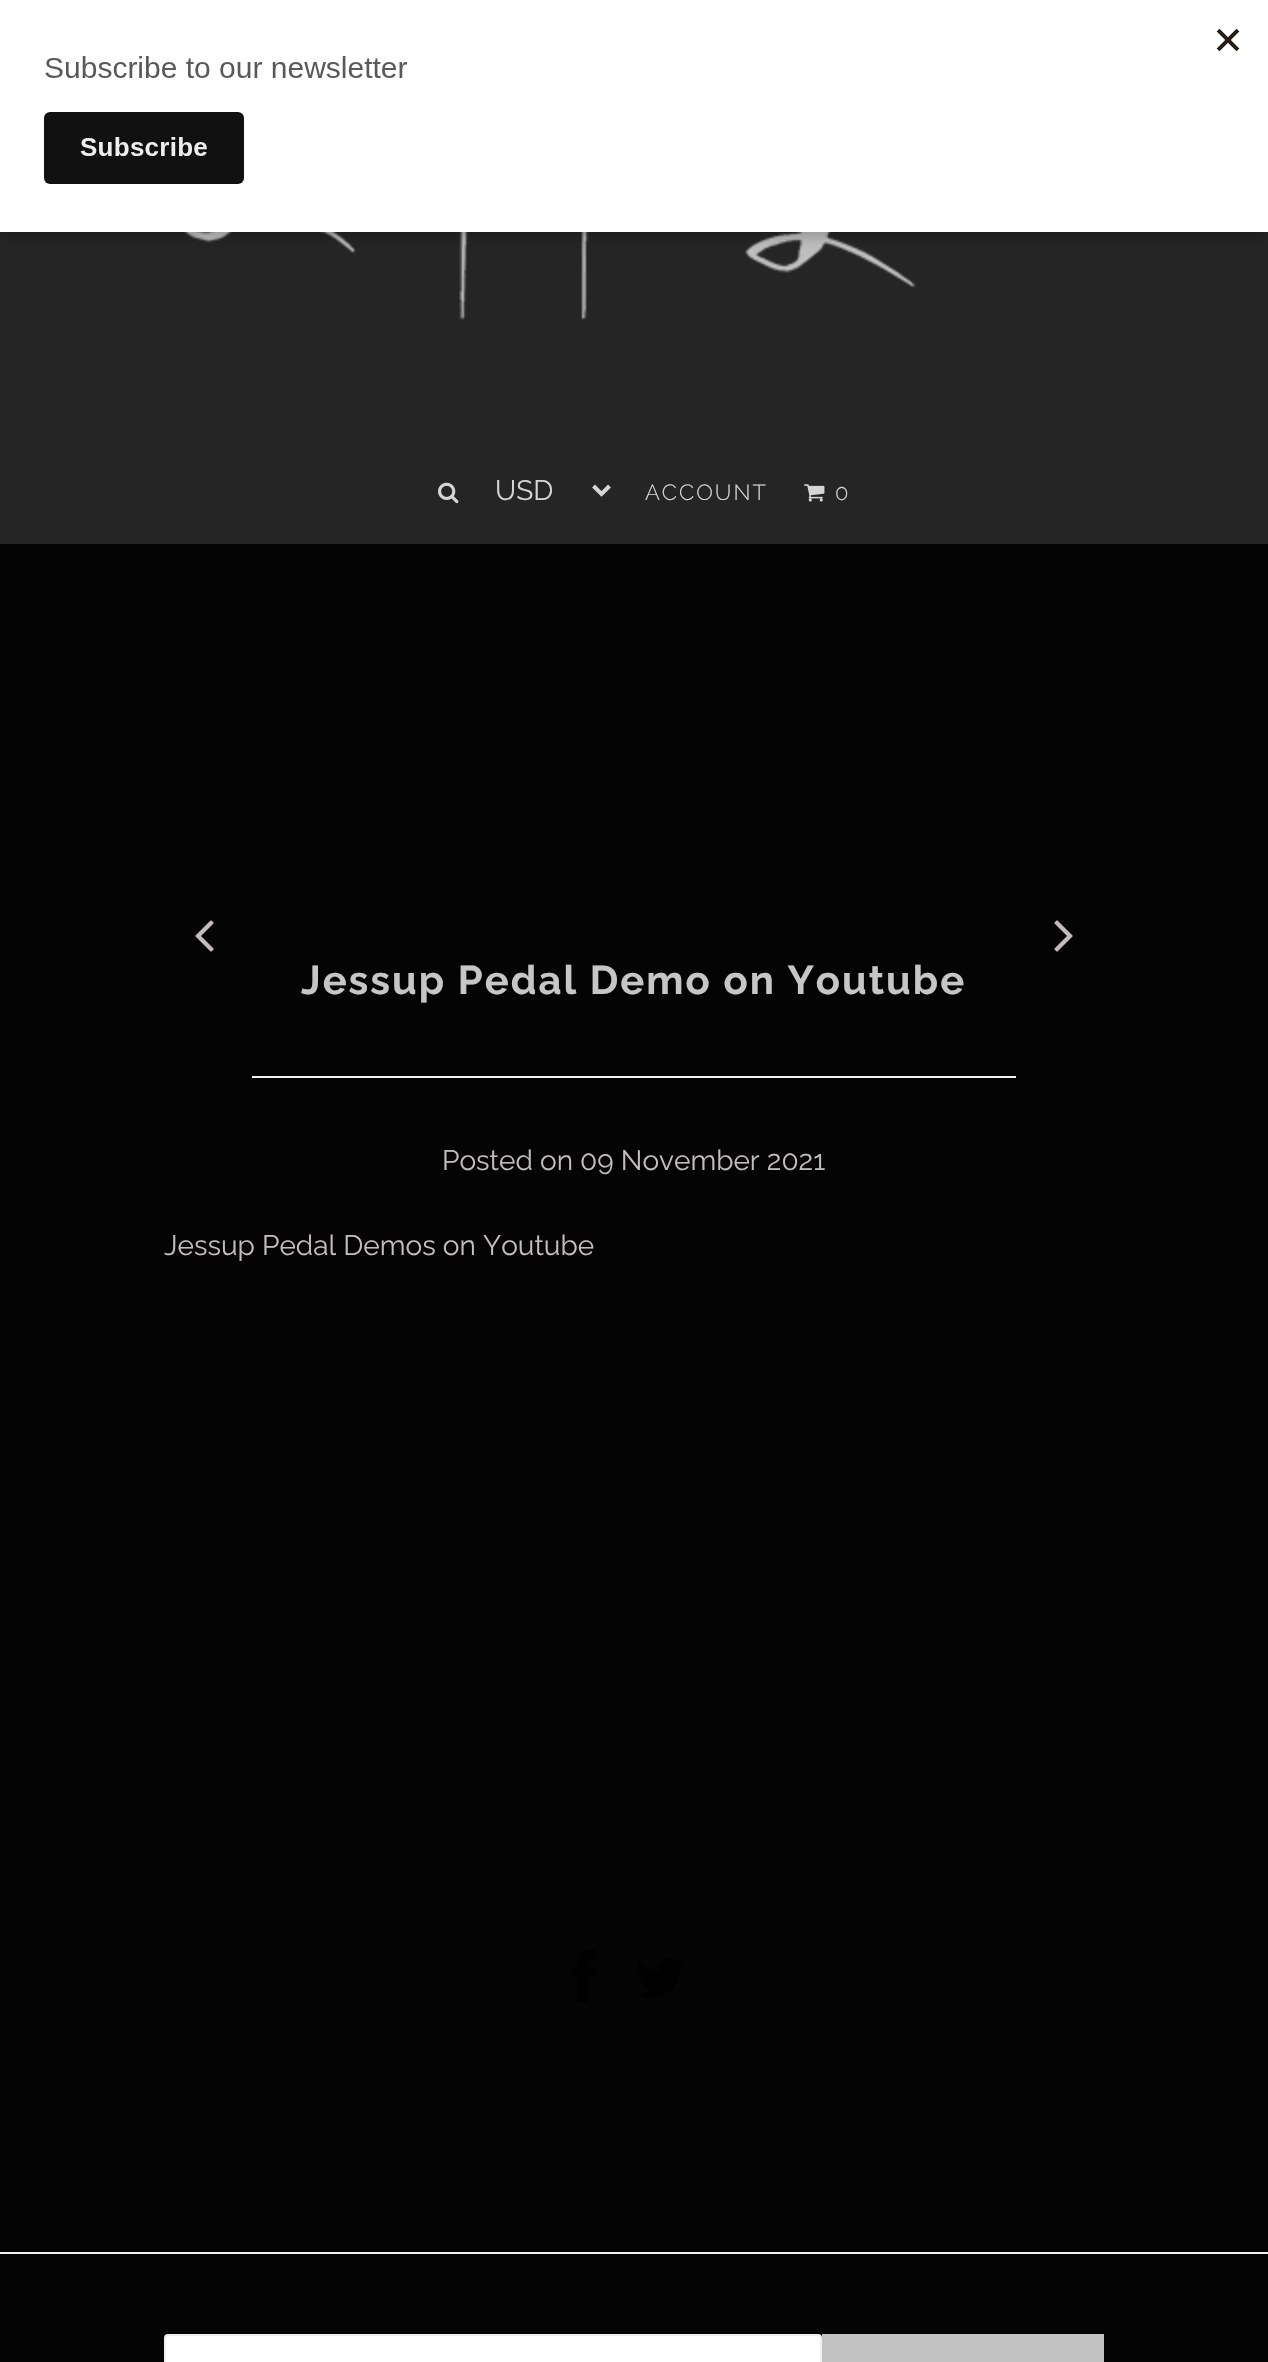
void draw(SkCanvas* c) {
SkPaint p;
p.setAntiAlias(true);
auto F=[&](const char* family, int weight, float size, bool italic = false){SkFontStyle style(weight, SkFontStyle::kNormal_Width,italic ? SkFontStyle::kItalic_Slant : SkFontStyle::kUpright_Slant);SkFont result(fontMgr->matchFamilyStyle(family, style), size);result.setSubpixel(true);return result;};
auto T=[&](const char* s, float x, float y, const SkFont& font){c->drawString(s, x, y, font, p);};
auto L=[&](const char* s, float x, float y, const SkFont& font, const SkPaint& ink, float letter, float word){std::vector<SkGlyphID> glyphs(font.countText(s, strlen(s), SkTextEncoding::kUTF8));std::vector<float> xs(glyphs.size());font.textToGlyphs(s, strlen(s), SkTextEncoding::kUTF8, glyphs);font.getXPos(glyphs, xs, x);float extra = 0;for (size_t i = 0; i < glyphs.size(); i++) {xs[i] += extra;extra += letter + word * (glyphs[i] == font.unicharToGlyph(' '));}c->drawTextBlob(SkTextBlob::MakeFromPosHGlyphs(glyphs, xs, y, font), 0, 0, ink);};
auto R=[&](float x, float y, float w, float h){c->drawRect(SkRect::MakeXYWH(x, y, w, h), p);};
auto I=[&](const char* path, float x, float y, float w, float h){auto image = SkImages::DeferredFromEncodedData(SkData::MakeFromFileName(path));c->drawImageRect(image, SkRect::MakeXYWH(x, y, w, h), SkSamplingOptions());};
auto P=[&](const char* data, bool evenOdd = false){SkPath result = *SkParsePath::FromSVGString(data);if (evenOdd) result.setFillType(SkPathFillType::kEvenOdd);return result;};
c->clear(0xff050404);
p.setColor(0xff252525);
R(0,232,1268,312);
I("2.png",183,232,733,89);
p.setColor(0x33000000);
p.setMaskFilter(SkMaskFilter::MakeBlur(kNormal_SkBlurStyle, 6));
c->drawRect(SkRect::MakeXYWH(0,6,1268,232),p);
p.setMaskFilter(nullptr);
p.setColor(0xffffffff);
R(0,0,1268,232);
I("1.png",44,28,1196,156);
I("3.png",438,482,21,22);
p.setStroke(true);
p.setStrokeWidth(4);
p.setColor(0xffd5d5d5);
c->drawPath(P("M593.5 486l8 8l8-8"),p);
auto f1 = F("Raleway",400,28);
p.setStroke(false);
T("USD",495,500,f1);
auto f2 = F("Raleway",300,22);
L("ACCOUNT",645,500,f2,p,2,0);
I("4.png",804,484,21,18);
L("0",835,500,f2,p,2,0);
I("5.png",195,920,19,32);
I("6.png",1054,920,19,32);
p.setColor(0xfff0f0f0);
R(252,1076,764,2);
auto f3 = F("Raleway",700,40);
p.setColor(0xffc7c6c6);
L("Jessup Pedal Demo on Youtube",301,994,f3,p,2,0);
p.setColor(0xffc2bebe);
T("Posted on 09 November 2021",442,1170,f1);
T("Jessup Pedal Demos on Youtube",164,1255,f1);
p.setColor(0xff000000);
c->drawPath(P("M588 1967h8l-1 9h-7v26h-11v-26h-5v-9h5c0-16 3-17 19-17v9c-9 0-8 0-8 8z"),p);
I("7.png",638,1958,45,40);
p.setColor(0xfff0f0f0);
R(0,2252,1268,2);
p.setColor(0xffffffff);
c->drawRoundRect(SkRect::MakeXYWH(165,2335,656,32),3,3,p);
p.setStroke(true);
p.setStrokeWidth(2);
p.setColor(0xfff0f0f0);
c->drawRoundRect(SkRect::MakeXYWH(165,2335,656,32),3,3,p);
p.setStroke(false);
p.setColor(0xffc3c2c2);
R(822,2334,282,28);
}
